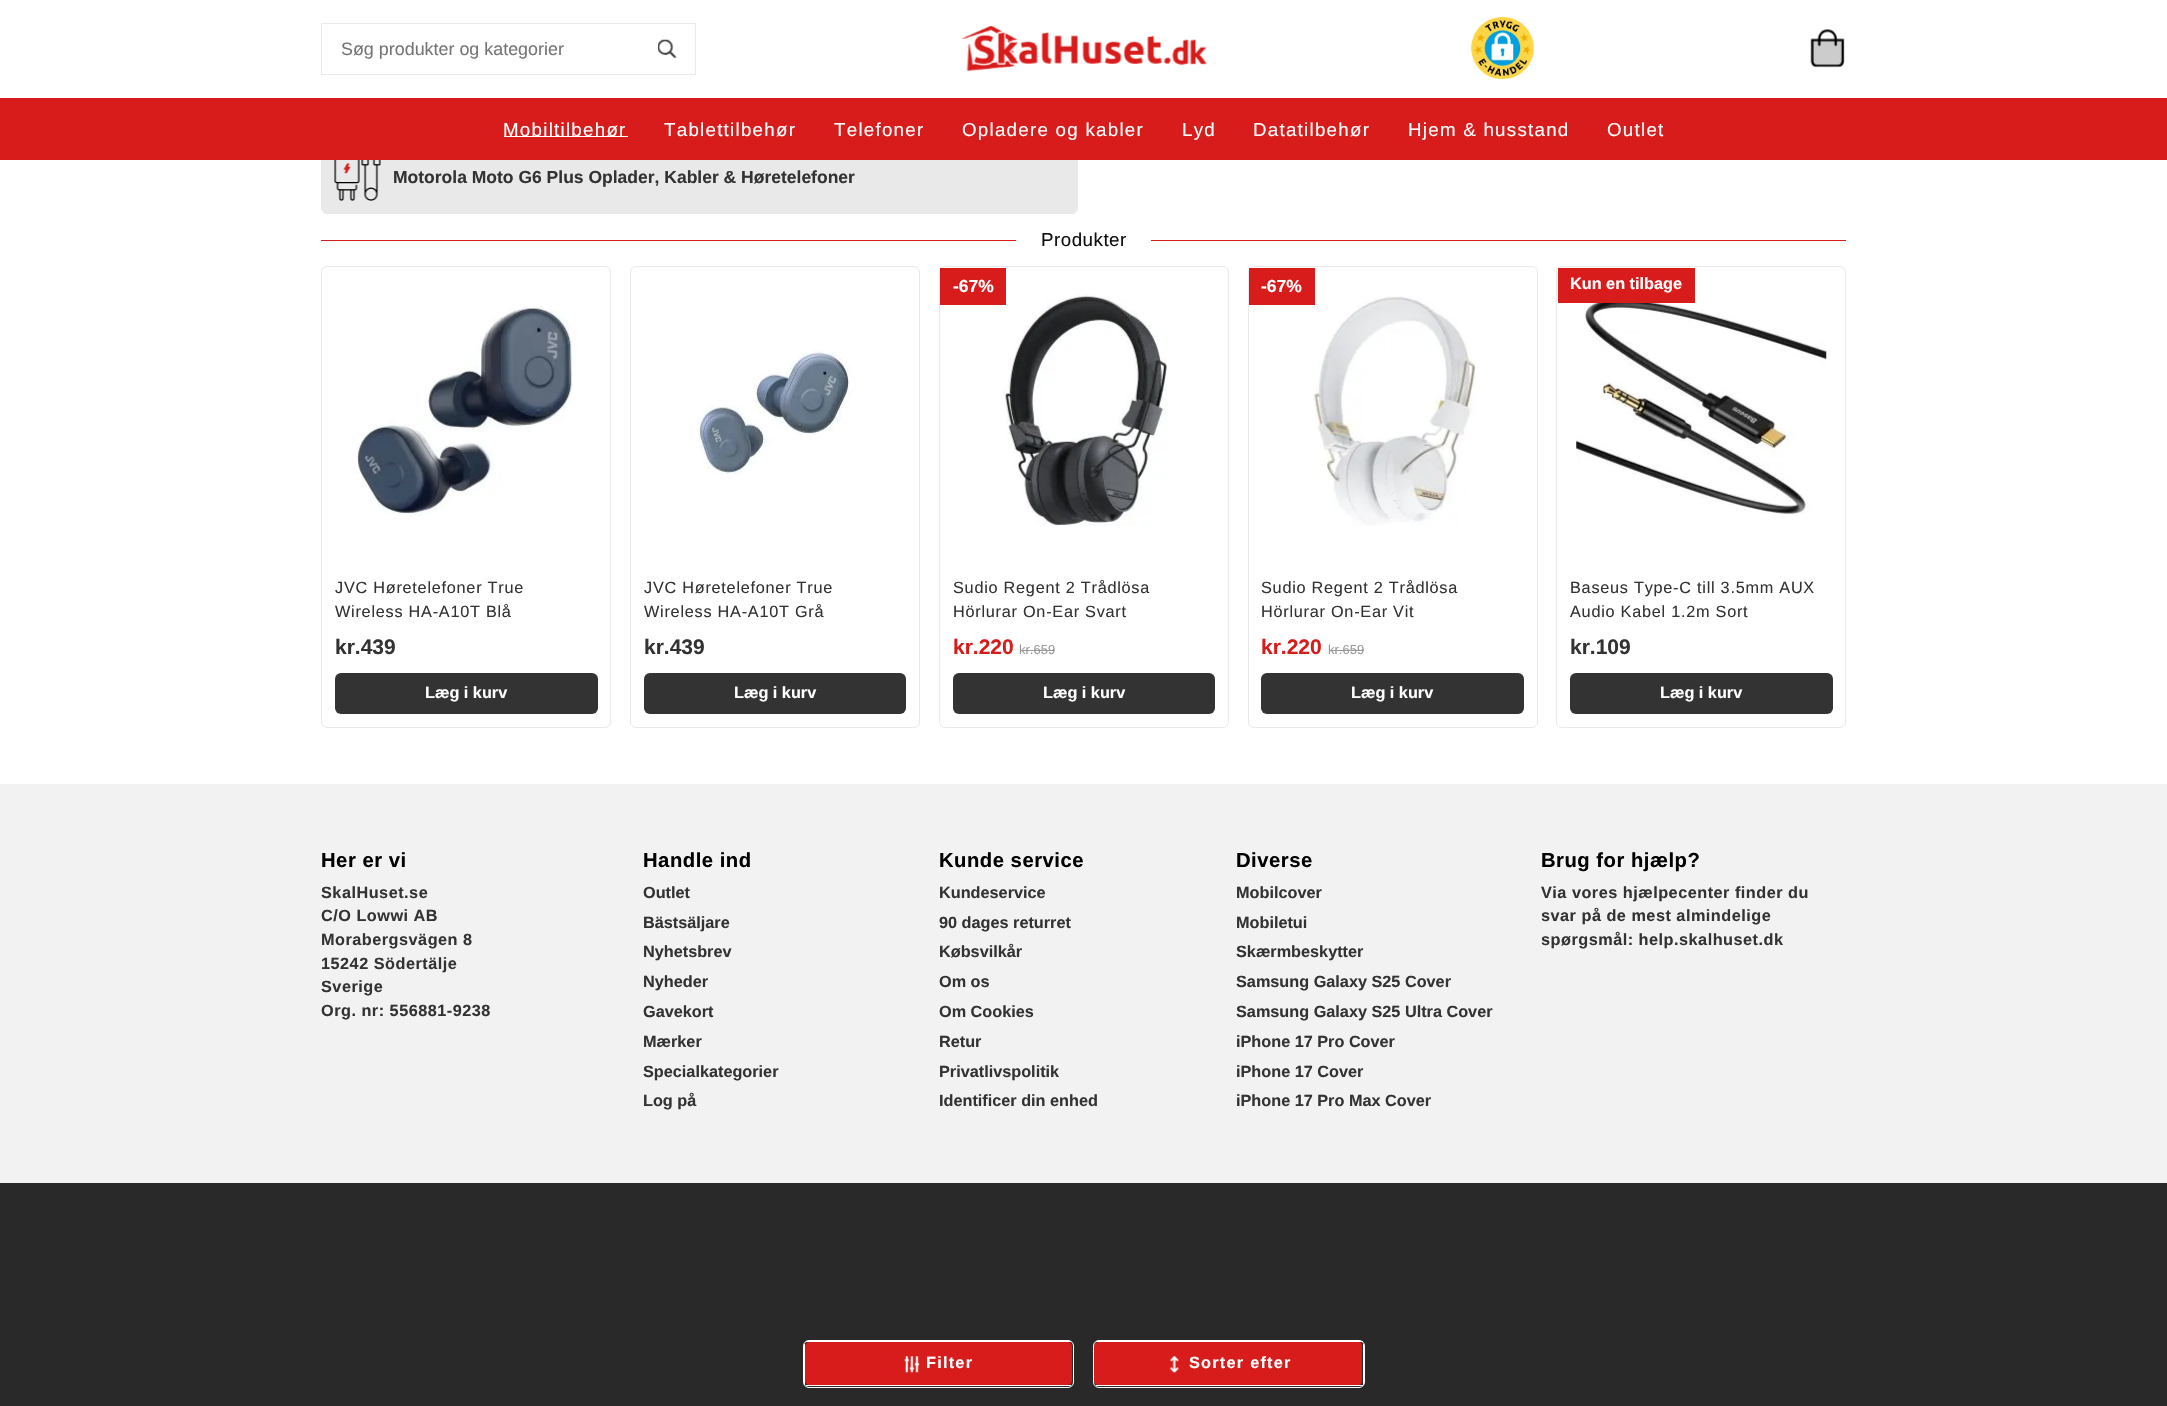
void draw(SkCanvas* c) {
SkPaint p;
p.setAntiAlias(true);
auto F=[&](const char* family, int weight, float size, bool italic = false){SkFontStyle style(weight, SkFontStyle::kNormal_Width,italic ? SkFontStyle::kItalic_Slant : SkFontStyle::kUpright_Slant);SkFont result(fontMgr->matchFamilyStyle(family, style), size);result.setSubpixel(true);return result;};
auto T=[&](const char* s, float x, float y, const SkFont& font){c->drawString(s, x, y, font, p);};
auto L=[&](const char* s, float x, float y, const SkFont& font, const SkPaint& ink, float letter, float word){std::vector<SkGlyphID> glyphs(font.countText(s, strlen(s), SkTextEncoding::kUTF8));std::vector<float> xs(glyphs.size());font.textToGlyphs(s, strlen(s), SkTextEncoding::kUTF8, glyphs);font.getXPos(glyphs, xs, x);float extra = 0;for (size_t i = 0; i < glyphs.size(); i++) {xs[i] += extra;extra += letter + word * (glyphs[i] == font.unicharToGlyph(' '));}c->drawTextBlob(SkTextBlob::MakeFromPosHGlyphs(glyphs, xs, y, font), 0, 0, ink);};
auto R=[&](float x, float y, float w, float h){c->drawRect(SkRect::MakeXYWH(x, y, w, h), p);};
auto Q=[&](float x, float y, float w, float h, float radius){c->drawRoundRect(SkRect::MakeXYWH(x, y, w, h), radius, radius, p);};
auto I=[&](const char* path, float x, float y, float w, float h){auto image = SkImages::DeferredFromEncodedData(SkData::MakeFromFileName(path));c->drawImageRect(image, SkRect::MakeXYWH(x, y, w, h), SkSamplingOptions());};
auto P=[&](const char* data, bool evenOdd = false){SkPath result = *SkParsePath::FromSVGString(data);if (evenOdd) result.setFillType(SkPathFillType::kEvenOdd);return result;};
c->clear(0xffffffff);
p.setStroke(true);
p.setStrokeWidth(1);
p.setColor(0xffebeaea);
c->drawRect(SkRect::MakeXYWH(321.5,23.5,374,51),p);
auto f1 = F("Liberation Sans",400,17.9);
p.setStroke(false);
p.setColor(0xff757575);
T("Søg produkter og kategorier",341,55,f1);
I("1.png",658,39,19,20);
I("2.png",961,26,246,45);
I("3.png",1471,17,63,62);
p.setColor(0xffcccccc);
c->drawPath(P("M1813 41h30v22.5c0 1.5-1 2.5-2.5 2.5h-25c-1.5 0-2.5-1-2.5-2.5z"),p);
I("4.png",1810,29,35,39);
p.setColor(0xffe9e9e9);
c->drawRoundRect(SkRect::MakeXYWH(321.5,141.5,756,72),5.5,5.5,p);
p.setStroke(true);
c->drawRoundRect(SkRect::MakeXYWH(321.5,141.5,756,72),5.5,5.5,p);
p.setStroke(false);
p.setColor(0xffd81b1b);
R(0,98,2167,62);
p.setColor(0xffffffff);
R(504,136,124,1);
auto f2 = F("Liberation Sans",400,18.75);
L("Mobiltilbehør",503,136,f2,p,1.25,0);
L("Tablettilbehør",664,136,f2,p,1.25,0);
L("Telefoner",834,136,f2,p,1.25,0);
L("Opladere og kabler",962,136,f2,p,1.25,0);
L("Lyd",1182,136,f2,p,1.25,0);
L("Datatilbehør",1253,136,f2,p,1.25,0);
L("Hjem & husstand",1408,136,f2,p,1.25,0);
L("Outlet",1607,136,f2,p,1.25,0);
I("5.png",334,160,47,41);
auto f3 = F("Liberation Sans",700,17.5);
p.setColor(0xff333333);
T("Motorola Moto G6 Plus Oplader, Kabler & Høretelefoner",393,183,f3);
p.setColor(0xffd81b1b);
R(321,240,1525,1);
p.setColor(0xffffffff);
R(1016,240,135,1);
p.setColor(0xff0f0f0f);
L("Produkter",1041,246,f2,p,.5,0);
p.setStroke(true);
p.setColor(0xffe9e9e9);
c->drawRoundRect(SkRect::MakeXYWH(321.5,266.5,289,461),5.5,5.5,p);
I("6.png",357,306,216,210);
auto f4 = F("Liberation Sans",400,16.25);
p.setStroke(false);
p.setColor(0xff333333);
L("JVC Høretelefoner True",335,593,f4,p,.75,0);
L("Wireless HA-A10T Blå",335,617,f4,p,.75,0);
auto f5 = F("Liberation Sans",700,21);
T("kr.439",335,654,f5);
Q(335,673,263,41,6);
auto f6 = F("Liberation Sans",700,16.25);
p.setColor(0xffffffff);
T("Læg i kurv",425,698,f6);
c->save();
c->clipRect(SkRect::MakeXYWH(458,684,8,17));
p.setStroke(true);
p.setStrokeWidth(2.5);
p.setColor(0xff333333);
c->drawPath(P("M461 687c7-7 17.5 4 10.5 11"),p);
c->restore();
p.setStrokeWidth(1);
p.setColor(0xffe9e9e9);
c->drawRoundRect(SkRect::MakeXYWH(630.5,266.5,289,461),5.5,5.5,p);
I("7.png",698,350,153,125);
p.setStroke(false);
p.setColor(0xff333333);
L("JVC Høretelefoner True",644,593,f4,p,.75,0);
L("Wireless HA-A10T Grå",644,617,f4,p,.75,0);
T("kr.439",644,654,f5);
Q(644,673,262,41,6);
p.setColor(0xffffffff);
T("Læg i kurv",734,698,f6);
c->save();
c->clipRect(SkRect::MakeXYWH(766,684,9,17));
p.setStroke(true);
p.setStrokeWidth(2.5);
p.setColor(0xff333333);
c->drawPath(P("M769.5 687c7-7 18 4 11 11"),p);
c->restore();
p.setStrokeWidth(1);
p.setColor(0xffe9e9e9);
c->drawRoundRect(SkRect::MakeXYWH(939.5,266.5,289,461),5.5,5.5,p);
I("8.png",1003,294,164,232);
p.setStroke(false);
p.setColor(0xffd81b1b);
R(940,268,66,37);
p.setColor(0xffffffff);
T("-67%",953,292,f3);
p.setColor(0xff333333);
L("Sudio Regent 2 Trådlösa",953,593,f4,p,.75,0);
L("Hörlurar On-Ear Svart",953,617,f4,p,.75,0);
p.setColor(0xffd81b1b);
T("kr.220",953,654,f5);
auto f7 = F("Liberation Sans",400,13);
p.setColor(0xff999999);
T("kr.659",1019,654,f7);
R(1020,650,35,1);
p.setColor(0xff333333);
Q(953,673,262,41,6);
p.setColor(0xffffffff);
T("Læg i kurv",1043,698,f6);
c->save();
c->clipRect(SkRect::MakeXYWH(1075,684,9,17));
p.setStroke(true);
p.setStrokeWidth(2.5);
p.setColor(0xff333333);
c->drawPath(P("M1078.5 687c7-7 17.5 4 10.5 11"),p);
c->restore();
p.setStrokeWidth(1);
p.setColor(0xffe9e9e9);
c->drawRoundRect(SkRect::MakeXYWH(1248.5,266.5,289,461),5.5,5.5,p);
I("9.png",1313,296,163,230);
p.setStroke(false);
p.setColor(0xffd81b1b);
R(1249,268,66,37);
p.setColor(0xffffffff);
T("-67%",1261,292,f3);
p.setColor(0xff333333);
L("Sudio Regent 2 Trådlösa",1261,593,f4,p,.75,0);
L("Hörlurar On-Ear Vit",1261,617,f4,p,.75,0);
p.setColor(0xffd81b1b);
T("kr.220",1261,654,f5);
p.setColor(0xff999999);
T("kr.659",1328,654,f7);
R(1329,650,35,1);
p.setColor(0xff333333);
Q(1261,673,263,41,6);
p.setColor(0xffffffff);
T("Læg i kurv",1351,698,f6);
c->save();
c->clipRect(SkRect::MakeXYWH(1384,684,9,17));
p.setStroke(true);
p.setStrokeWidth(2.5);
p.setColor(0xff333333);
c->drawPath(P("M1387 687c7-7 18 4 11 11"),p);
c->restore();
p.setStrokeWidth(1);
p.setColor(0xffe9e9e9);
c->drawRoundRect(SkRect::MakeXYWH(1556.5,266.5,289,461),5.5,5.5,p);
I("10.png",1576,298,251,216);
p.setStroke(false);
p.setColor(0xffd81b1b);
R(1558,268,137,35);
p.setColor(0xffffffff);
T("Kun en tilbage",1570,289,f6);
p.setColor(0xff333333);
L("Baseus Type-C till 3.5mm AUX",1570,593,f4,p,.75,0);
L("Audio Kabel 1.2m Sort",1570,617,f4,p,.75,0);
T("kr.109",1570,654,f5);
Q(1570,673,263,41,6);
p.setColor(0xffffffff);
T("Læg i kurv",1660,698,f6);
c->save();
c->clipRect(SkRect::MakeXYWH(1693,684,8,17));
p.setStroke(true);
p.setStrokeWidth(2.5);
p.setColor(0xff333333);
c->drawPath(P("M1696 687c7-7 17.5 4 10.5 11"),p);
c->restore();
p.setStroke(false);
p.setColor(0xff2a2929);
R(0,1183,2167,223);
p.setColor(0xffd81b1b);
c->drawPath(P("M809 1342h259c2 0 4 2 4 4v35c0 2-2 4-4 4h-259c-2 0-4-2-4-4v-35c0-2 2-4 4-4z"),p);
p.setStroke(true);
p.setStrokeWidth(1);
p.setColor(0xffffffff);
c->drawRoundRect(SkRect::MakeXYWH(803.5,1340.5,270,47),5.5,5.5,p);
p.setStroke(false);
R(806,1341,265,1);
R(806,1385,265,1);
R(804,1344,1,41);
I("11.png",904,1356,16,17);
L("Filter",926,1368,f6,p,1.25,0);
p.setColor(0xffd81b1b);
c->drawPath(P("M1099 1342h260c2 0 3 2 3 4v35c0 2-1 4-3 4h-260c-3 0-5-2-5-4v-35c0-2 2-4 5-4z"),p);
p.setStroke(true);
p.setColor(0xffffffff);
c->drawRoundRect(SkRect::MakeXYWH(1093.5,1340.5,271,47),5.5,5.5,p);
p.setStroke(false);
R(1096,1341,267,1);
R(1363,1344,1,41);
R(1096,1385,267,1);
I("12.png",1169,1356,10,17);
L("Sorter efter",1189,1368,f6,p,1.25,0);
p.setColor(0xfff2f2f2);
R(0,784,2167,399);
auto f8 = F("Liberation Sans",700,20.25);
p.setColor(0xff000000);
L("Her er vi",321,867,f8,p,.5,0);
p.setColor(0xff333333);
L("SkalHuset.se",321,898,f6,p,.5,0);
L("C/O Lowwi AB",321,921,f6,p,.5,0);
L("Morabergsvägen 8",321,945,f6,p,.5,0);
L("15242 Södertälje",321,969,f6,p,.5,0);
L("Sverige",321,992,f6,p,.5,0);
L("Org. nr: 556881-9238",321,1016,f6,p,.5,0);
p.setColor(0xff000000);
L("Handle ind",643,867,f8,p,.5,0);
p.setColor(0xff333333);
T("Outlet",643,898,f6);
T("Bästsäljare",643,928,f6);
T("Nyhetsbrev",643,957,f6);
T("Nyheder",643,987,f6);
T("Gavekort",643,1017,f6);
T("Mærker",643,1047,f6);
T("Specialkategorier",643,1077,f6);
T("Log på",643,1106,f6);
p.setColor(0xff000000);
L("Kunde service",939,867,f8,p,.5,0);
p.setColor(0xff333333);
T("Kundeservice",939,898,f6);
T("90 dages returret",939,928,f6);
T("Købsvilkår",939,957,f6);
T("Om os",939,987,f6);
T("Om Cookies",939,1017,f6);
T("Retur",939,1047,f6);
T("Privatlivspolitik",939,1077,f6);
T("Identificer din enhed",939,1106,f6);
p.setColor(0xff000000);
L("Diverse",1236,867,f8,p,.5,0);
p.setColor(0xff333333);
T("Mobilcover",1236,898,f6);
T("Mobiletui",1236,928,f6);
T("Skærmbeskytter",1236,957,f6);
T("Samsung Galaxy S25 Cover",1236,987,f6);
T("Samsung Galaxy S25 Ultra Cover",1236,1017,f6);
T("iPhone 17 Pro Cover",1236,1047,f6);
T("iPhone 17 Cover",1236,1077,f6);
T("iPhone 17 Pro Max Cover",1236,1106,f6);
p.setColor(0xff000000);
L("Brug for hjælp?",1541,867,f8,p,.5,0);
p.setColor(0xff333333);
L("Via vores hjælpecenter finder du",1541,898,f6,p,.5,0);
L("svar på de mest almindelige",1541,921,f6,p,.5,0);
L("spørgsmål: help.skalhuset.dk",1541,945,f6,p,.5,0);
}
